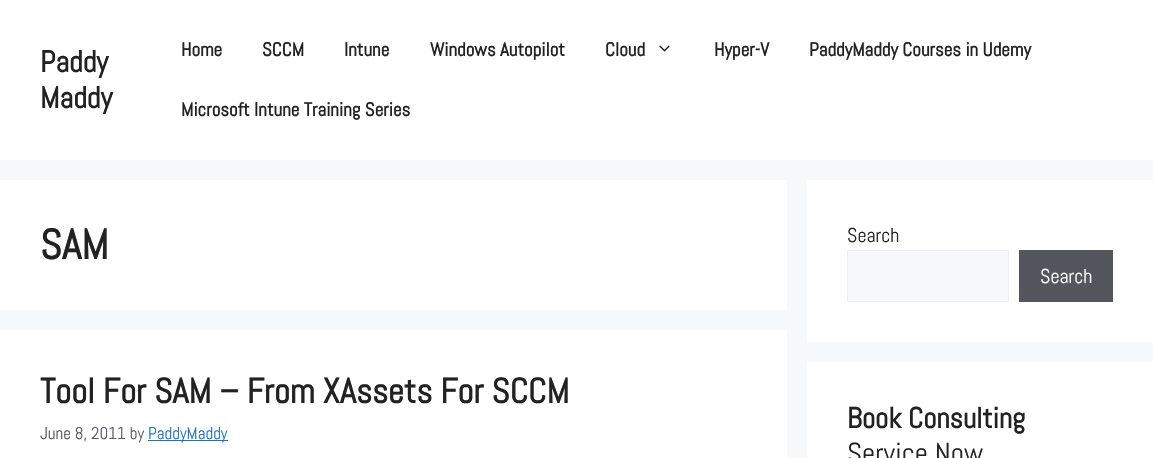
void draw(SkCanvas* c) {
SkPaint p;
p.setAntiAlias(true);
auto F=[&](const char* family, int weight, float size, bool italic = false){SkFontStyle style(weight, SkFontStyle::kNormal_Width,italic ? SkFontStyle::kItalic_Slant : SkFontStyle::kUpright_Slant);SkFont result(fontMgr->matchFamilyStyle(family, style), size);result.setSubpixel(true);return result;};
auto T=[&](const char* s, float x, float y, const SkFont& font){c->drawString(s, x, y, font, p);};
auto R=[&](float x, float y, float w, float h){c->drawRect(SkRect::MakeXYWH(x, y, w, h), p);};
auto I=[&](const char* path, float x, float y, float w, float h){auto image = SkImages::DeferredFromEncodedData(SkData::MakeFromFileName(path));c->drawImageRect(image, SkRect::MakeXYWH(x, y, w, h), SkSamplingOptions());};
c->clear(0xfff7f8f9);
p.setColor(0xffffffff);
R(0,0,1153,160);
auto f1 = F("Abel",700,30);
p.setColor(0xff222222);
T("Paddy",40,72,f1);
T("Maddy",40,108,f1);
auto f2 = F("Abel",700,19);
T("Home",181,56,f2);
T("SCCM",262,56,f2);
T("Intune",344,56,f2);
T("Windows Autopilot",430,56,f2);
T("Cloud",605,56,f2);
I("1.png",659,45,11,7);
T("Hyper-V",714,56,f2);
T("PaddyMaddy Courses in Udemy",809,56,f2);
T("Microsoft Intune Training Series",181,116,f2);
p.setColor(0xffffffff);
R(0,180,787,130);
auto f3 = F("Abel",700,42);
p.setColor(0xff222222);
T("SAM",40,259,f3);
p.setColor(0xffffffff);
R(0,330,787,128);
auto f4 = F("Abel",700,35);
p.setColor(0xff222222);
T("Tool For SAM – From XAssets For SCCM",40,403,f4);
auto f5 = F("Abel",400,17);
p.setColor(0xff575760);
T("June 8, 2011 by",40,439,f5);
p.setColor(0xff1e73be);
R(148,440,80,1);
T("PaddyMaddy",148,439,f5);
p.setColor(0xffffffff);
R(807,180,346,162);
auto f6 = F("Abel",400,20);
p.setColor(0xff222222);
T("Search",847,242,f6);
p.setColor(0xfff7f8f9);
c->drawRect(SkRect::MakeXYWH(847.5,250.5,161,51),p);
p.setStroke(true);
p.setStrokeWidth(1);
p.setColor(0xfff0f0f0);
c->drawRect(SkRect::MakeXYWH(847.5,250.5,161,51),p);
p.setStroke(false);
p.setColor(0xff55555e);
R(1019,250,94,52);
p.setColor(0xffffffff);
T("Search",1040,283,f6);
R(807,362,346,96);
auto f7 = F("Abel",700,29);
p.setColor(0xff222222);
T("Book Consulting",847,428,f7);
auto f8 = F("Abel",400,29);
T("Service Now",847,463,f8);
}
